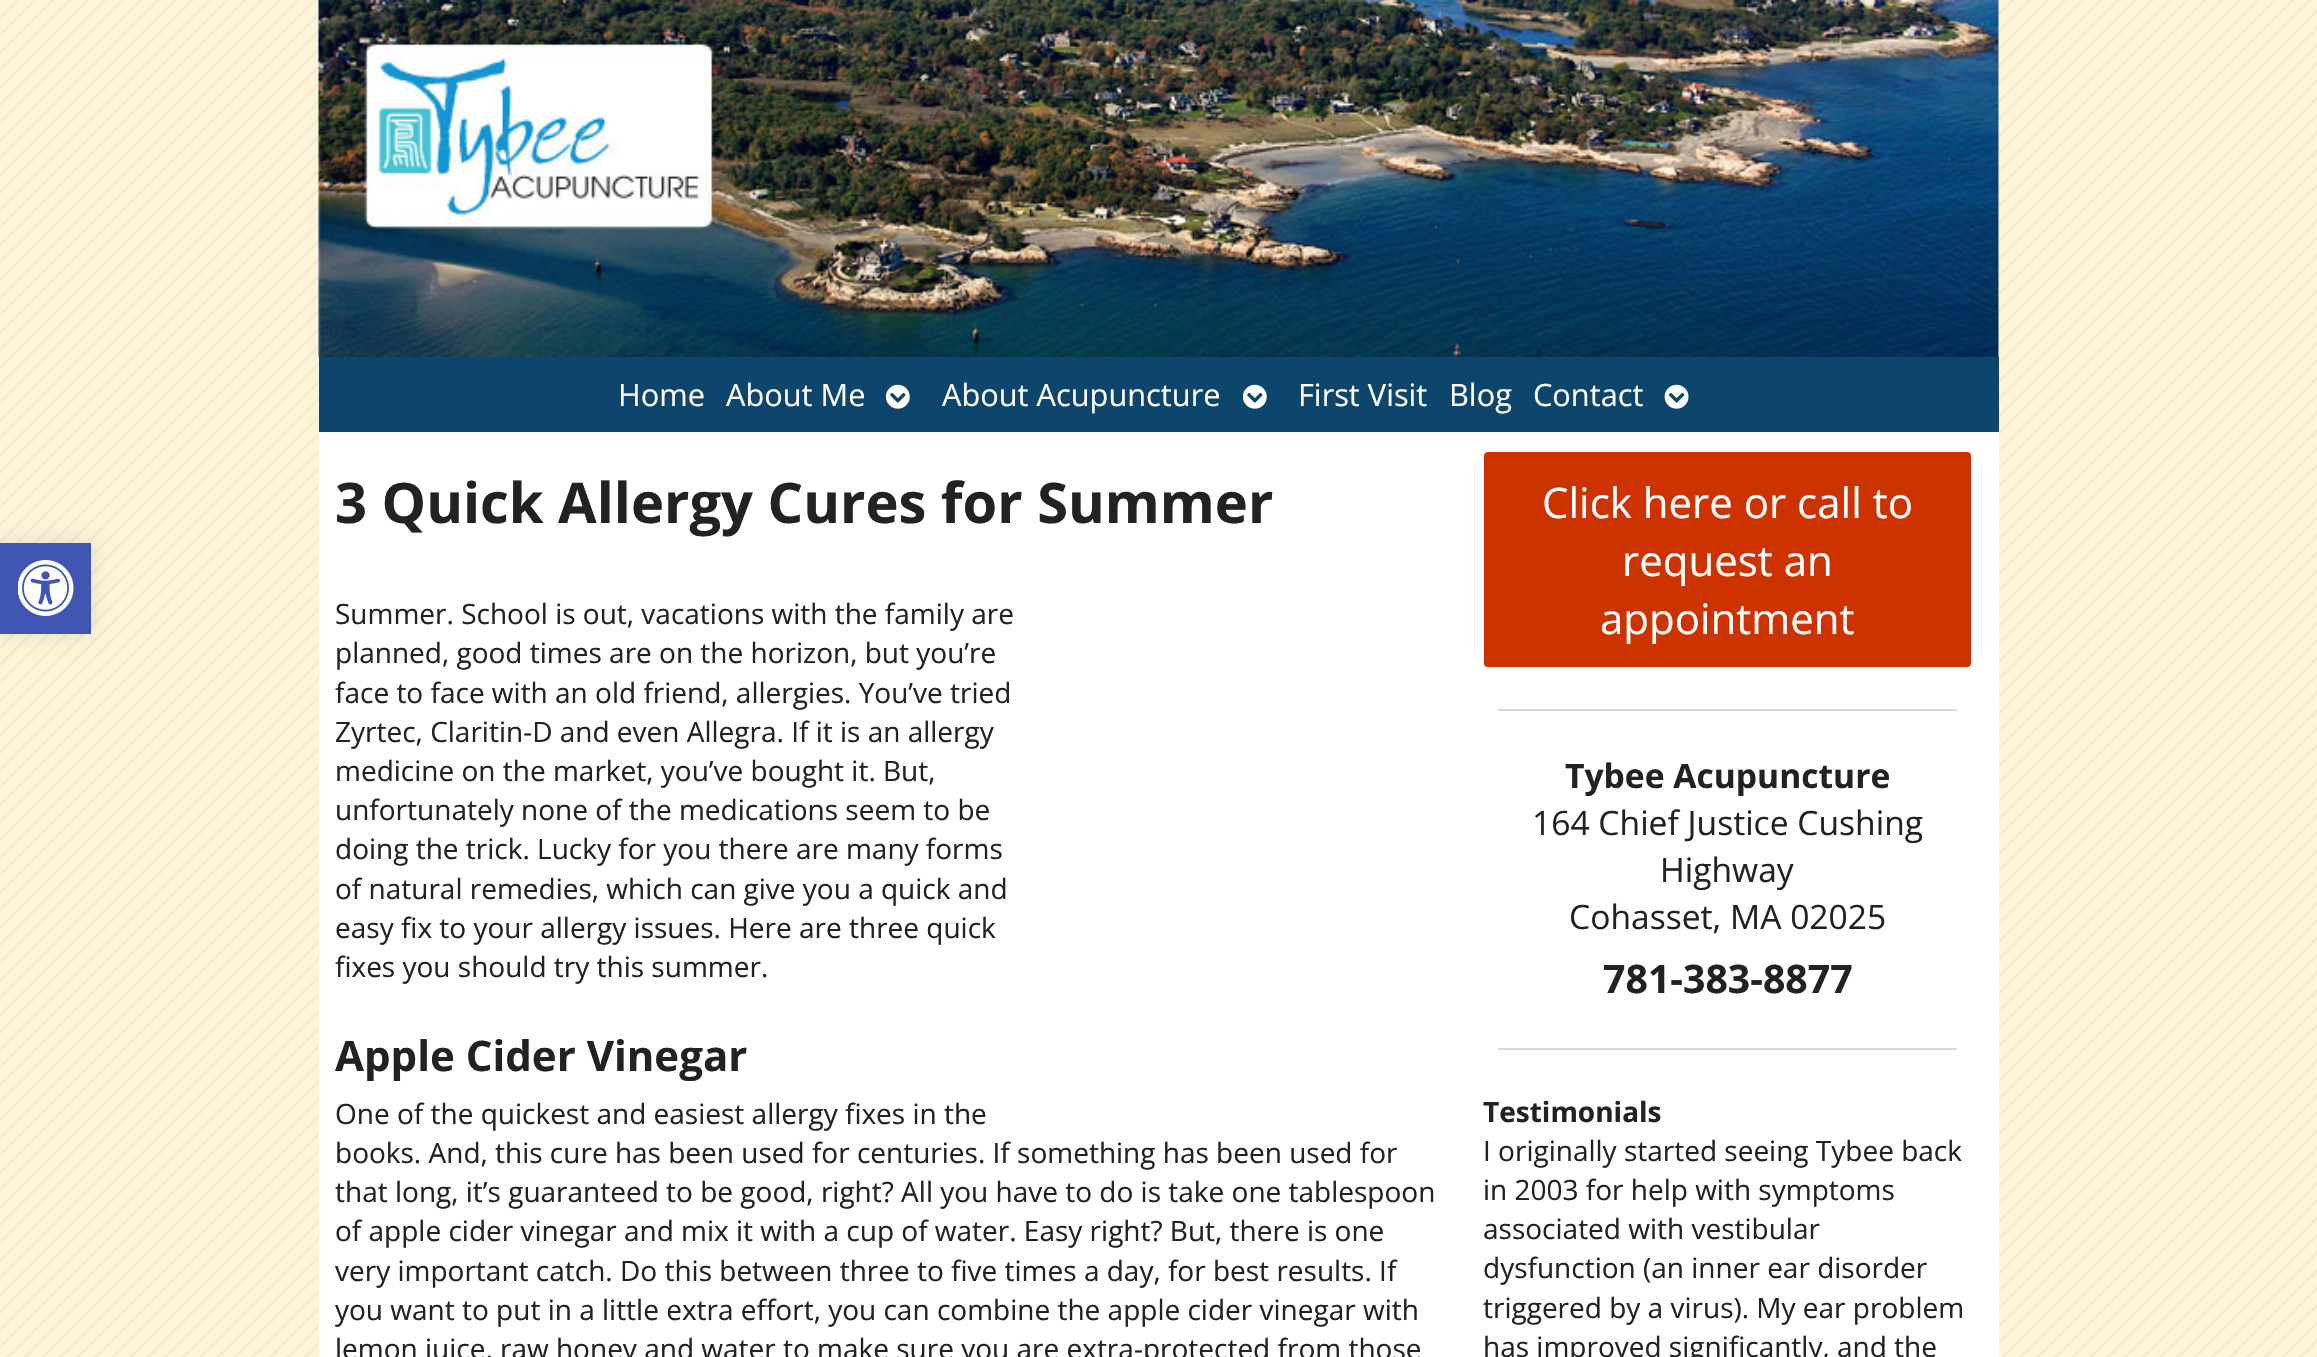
void draw(SkCanvas* c) {
SkPaint p;
p.setAntiAlias(true);
auto F=[&](const char* family, int weight, float size, bool italic = false){SkFontStyle style(weight, SkFontStyle::kNormal_Width,italic ? SkFontStyle::kItalic_Slant : SkFontStyle::kUpright_Slant);SkFont result(fontMgr->matchFamilyStyle(family, style), size);result.setSubpixel(true);return result;};
auto T=[&](const char* s, float x, float y, const SkFont& font){c->drawString(s, x, y, font, p);};
auto R=[&](float x, float y, float w, float h){c->drawRect(SkRect::MakeXYWH(x, y, w, h), p);};
auto Q=[&](float x, float y, float w, float h, float radius){c->drawRoundRect(SkRect::MakeXYWH(x, y, w, h), radius, radius, p);};
auto I=[&](const char* path, float x, float y, float w, float h){auto image = SkImages::DeferredFromEncodedData(SkData::MakeFromFileName(path));c->drawImageRect(image, SkRect::MakeXYWH(x, y, w, h), SkSamplingOptions());};
c->clear(0xfffff4d8);
I("1.png",0,0,2317,1357);
p.setColor(0x1a000000);
p.setMaskFilter(SkMaskFilter::MakeBlur(kNormal_SkBlurStyle, 9));
c->drawRect(SkRect::MakeXYWH(0,543,91,91),p);
p.setMaskFilter(nullptr);
p.setColor(0xff4054b2);
R(0,543,91,91);
I("2.png",18,560,56,56);
p.setColor(0xffffffff);
R(319,0,1680,1357);
I("3.png",318,0,1681,357);
p.setColor(0xff0d456c);
R(319,357,1680,75);
auto f1 = F("Open Sans",400,30.75);
p.setColor(0xffffffff);
T("Home",618,406,f1);
T("About Me",726,406,f1);
I("4.png",885,384,25,25);
T("About Acupuncture",942,406,f1);
I("4.png",1242,384,25,25);
T("First Visit",1298,406,f1);
T("Blog",1449,406,f1);
T("Contact",1533,406,f1);
I("5.png",1664,384,25,25);
auto f2 = F("Open Sans",700,56);
p.setColor(0xff222222);
T("3 Quick Allergy Cures for Summer",335,523,f2);
auto f3 = F("Open Sans",400,28);
T("Summer. School is out, vacations with the family are",335,624,f3);
T("planned, good times are on the horizon, but you’re",335,663,f3);
T("face to face with an old friend, allergies. You’ve tried",335,703,f3);
T("Zyrtec, Claritin-D and even Allegra. If it is an allergy",335,742,f3);
T("medicine on the market, you’ve bought it. But,",335,781,f3);
T("unfortunately none of the medications seem to be",335,820,f3);
T("doing the trick. Lucky for you there are many forms",335,859,f3);
T("of natural remedies, which can give you a quick and",335,899,f3);
T("easy fix to your allergy issues. Here are three quick",335,938,f3);
T("fixes you should try this summer.",335,977,f3);
auto f4 = F("Open Sans",700,42);
T("Apple Cider Vinegar",335,1071,f4);
T("One of the quickest and easiest allergy fixes in the",335,1124,f3);
T("books. And, this cure has been used for centuries. If something has been used for",335,1163,f3);
T("that long, it’s guaranteed to be good, right? All you have to do is take one tablespoon",335,1202,f3);
T("of apple cider vinegar and mix it with a cup of water. Easy right? But, there is one",335,1241,f3);
T("very important catch. Do this between three to five times a day, for best results. If",335,1281,f3);
T("you want to put in a little extra effort, you can combine the apple cider vinegar with",335,1320,f3);
T("lemon juice, raw honey and water to make sure you are extra-protected from those",335,1359,f3);
p.setColor(0xffcc3300);
Q(1484,452,487,215,4);
auto f5 = F("Open Sans",400,42);
p.setColor(0xffffffff);
T("Click here or call to",1542,518,f5);
T("request an",1622,576,f5);
T("appointment",1600,634,f5);
p.setColor(0xffd9d9d9);
R(1498,709,459,2);
auto f6 = F("Open Sans",700,33.6);
p.setColor(0xff222222);
T("Tybee Acupuncture",1565,788,f6);
auto f7 = F("Open Sans",400,33.6);
T("164 Chief Justice Cushing",1532,835,f7);
T("Highway",1660,882,f7);
T("Cohasset, MA 02025",1569,929,f7);
auto f8 = F("Open Sans",700,39.25);
T("781-383-8877",1603,993,f8);
p.setColor(0xffd9d9d9);
R(1498,1048,459,2);
auto f9 = F("Open Sans",700,28);
p.setColor(0xff222222);
T("Testimonials",1483,1122,f9);
T("I originally started seeing Tybee back",1483,1161,f3);
T("in 2003 for help with symptoms",1483,1200,f3);
T("associated with vestibular",1483,1239,f3);
T("dysfunction (an inner ear disorder",1483,1278,f3);
T("triggered by a virus). My ear problem",1483,1318,f3);
T("has improved significantly, and the",1483,1357,f3);
}
